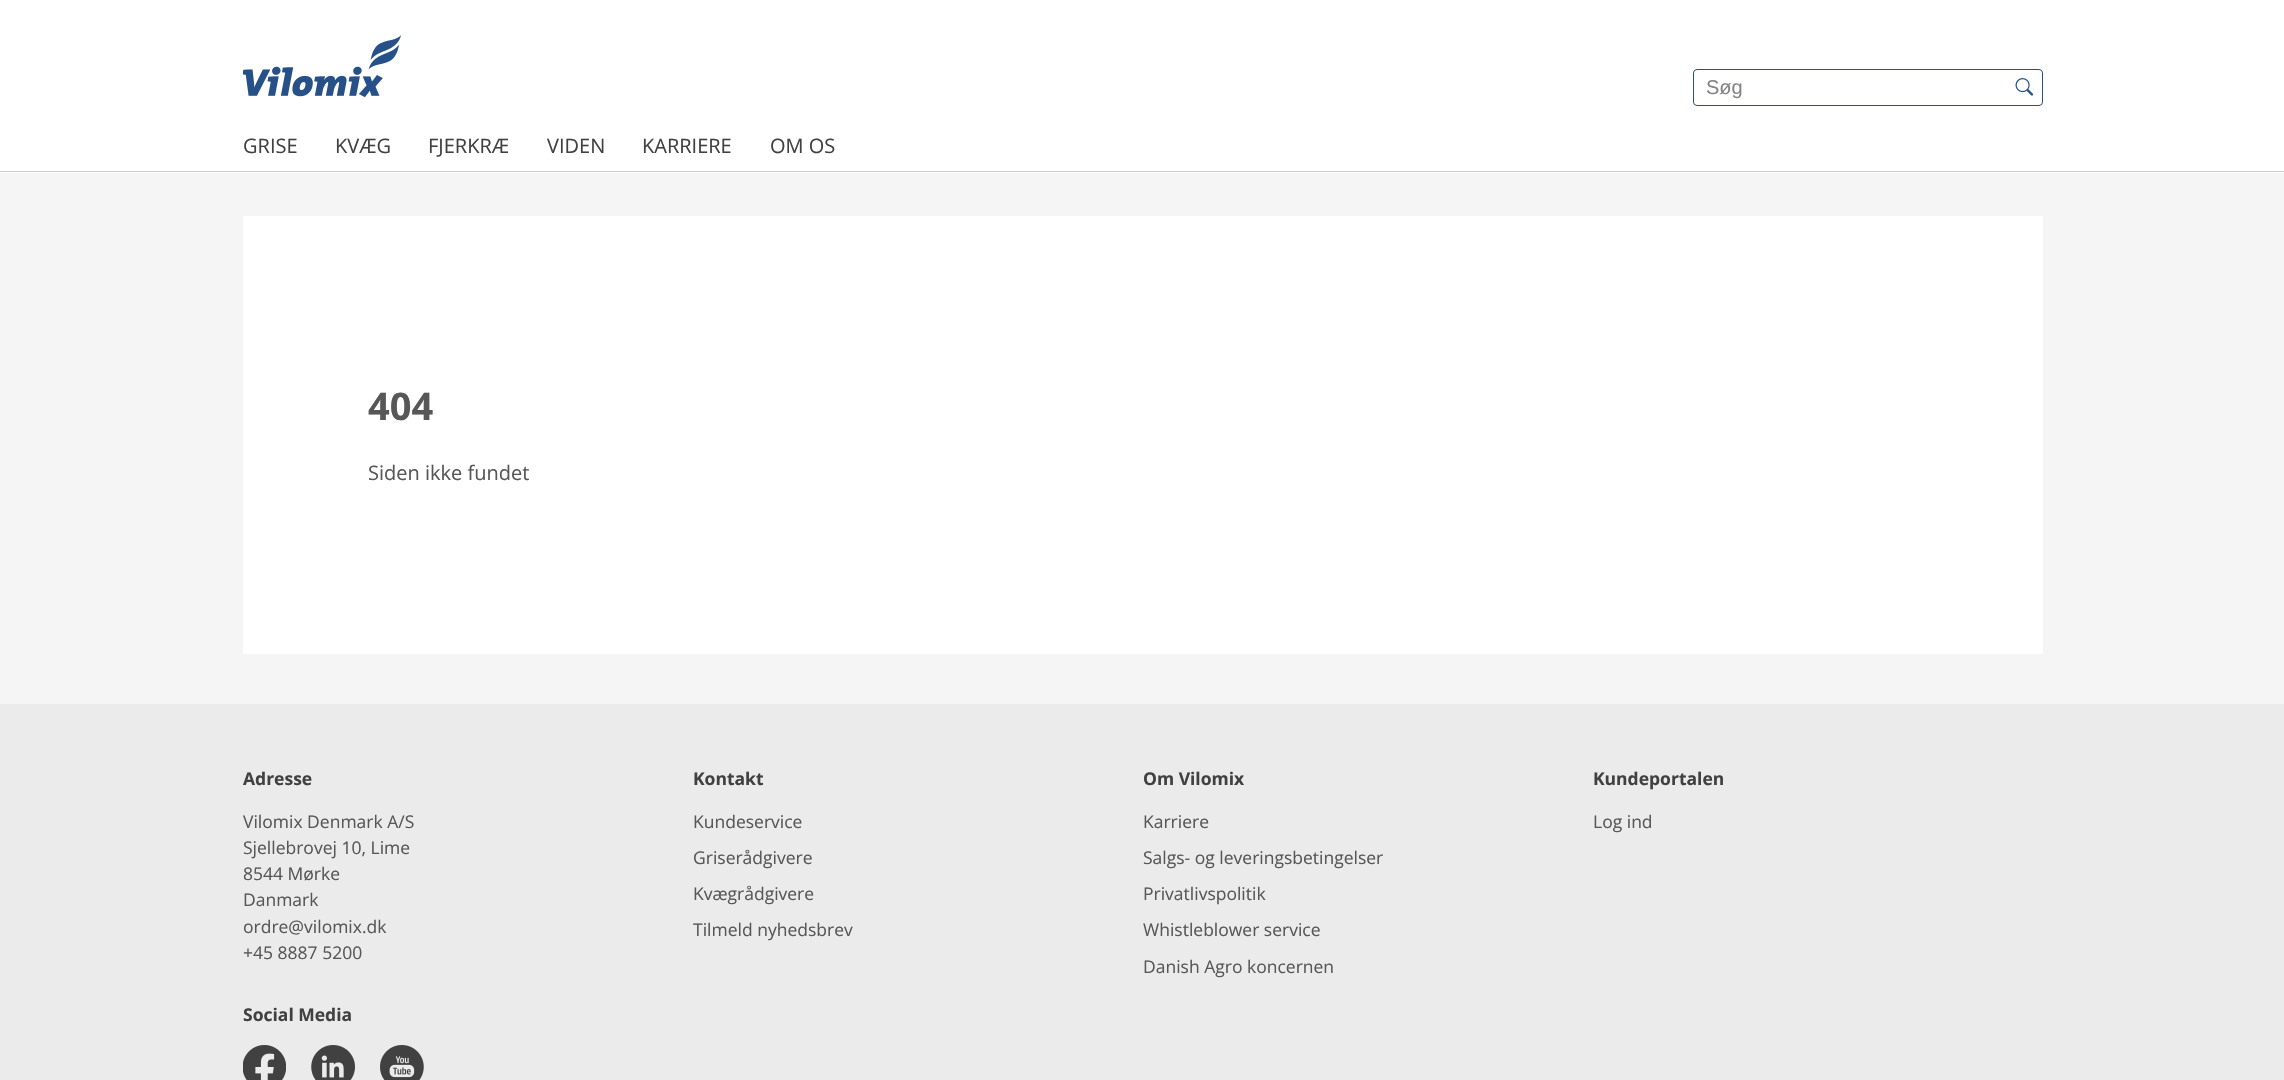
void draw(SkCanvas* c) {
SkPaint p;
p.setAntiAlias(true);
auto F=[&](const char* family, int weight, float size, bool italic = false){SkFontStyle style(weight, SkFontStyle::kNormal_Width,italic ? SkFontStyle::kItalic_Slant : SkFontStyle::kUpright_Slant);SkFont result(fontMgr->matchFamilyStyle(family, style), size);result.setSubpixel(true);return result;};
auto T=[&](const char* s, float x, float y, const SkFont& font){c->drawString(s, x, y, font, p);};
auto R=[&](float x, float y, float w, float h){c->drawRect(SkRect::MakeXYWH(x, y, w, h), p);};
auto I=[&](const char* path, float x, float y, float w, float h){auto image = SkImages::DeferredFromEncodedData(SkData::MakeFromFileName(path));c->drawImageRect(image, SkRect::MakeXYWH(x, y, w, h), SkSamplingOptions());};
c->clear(0xffffffff);
p.setColor(0xffcccccc);
R(0,171,2284,1);
I("1.png",243,35,158,63);
p.setStroke(true);
p.setStrokeWidth(1);
p.setColor(0xff265189);
c->drawRoundRect(SkRect::MakeXYWH(1693.5,69.5,349,36),3.5,3.5,p);
auto f1 = F("Liberation Sans",400,20);
p.setStroke(false);
p.setColor(0xff858585);
T("Søg",1706,94,f1);
I("2.png",2015,78,19,18);
auto f2 = F("Open Sans",400,20);
p.setColor(0xff414142);
T("GRISE",243,153,f2);
T("KVÆG",335,153,f2);
T("FJERKRÆ",428,153,f2);
T("VIDEN",547,153,f2);
T("KARRIERE",642,153,f2);
T("OM OS",770,153,f2);
p.setColor(0xfff5f5f5);
R(0,173,2284,531);
p.setColor(0xffffffff);
R(243,216,1800,438);
auto f3 = F("Open Sans",700,38);
p.setColor(0xff575757);
T("404",368,420,f3);
T("Siden ikke fundet",368,480,f2);
p.setColor(0xffebebeb);
R(0,704,2284,376);
auto f4 = F("Open Sans",700,17.5);
p.setColor(0xff414142);
T("Adresse",243,785,f4);
auto f5 = F("Open Sans",400,17.5);
p.setColor(0xff575757);
T("Vilomix Denmark A/S",243,828,f5);
T("Sjellebrovej 10, Lime",243,854,f5);
T("8544 Mørke",243,880,f5);
T("Danmark",243,906,f5);
T("ordre@vilomix.dk",243,933,f5);
T("+45 8887 5200",243,959,f5);
p.setColor(0xff414142);
T("Kontakt",693,785,f4);
p.setColor(0xff575757);
T("Kundeservice",693,828,f5);
T("Griserådgivere",693,864,f5);
T("Kvægrådgivere",693,900,f5);
T("Tilmeld nyhedsbrev",693,936,f5);
p.setColor(0xff414142);
T("Om Vilomix",1143,785,f4);
p.setColor(0xff575757);
T("Karriere",1143,828,f5);
T("Salgs- og leveringsbetingelser",1143,864,f5);
T("Privatlivspolitik",1143,900,f5);
T("Whistleblower service",1143,936,f5);
T("Danish Agro koncernen",1143,973,f5);
p.setColor(0xff414142);
T("Kundeportalen",1593,785,f4);
p.setColor(0xff575757);
T("Log ind",1593,828,f5);
p.setColor(0xff414142);
T("Social Media",243,1021,f4);
I("3.png",243,1045,43,35);
I("4.png",311,1045,44,35);
I("5.png",380,1045,44,35);
}
